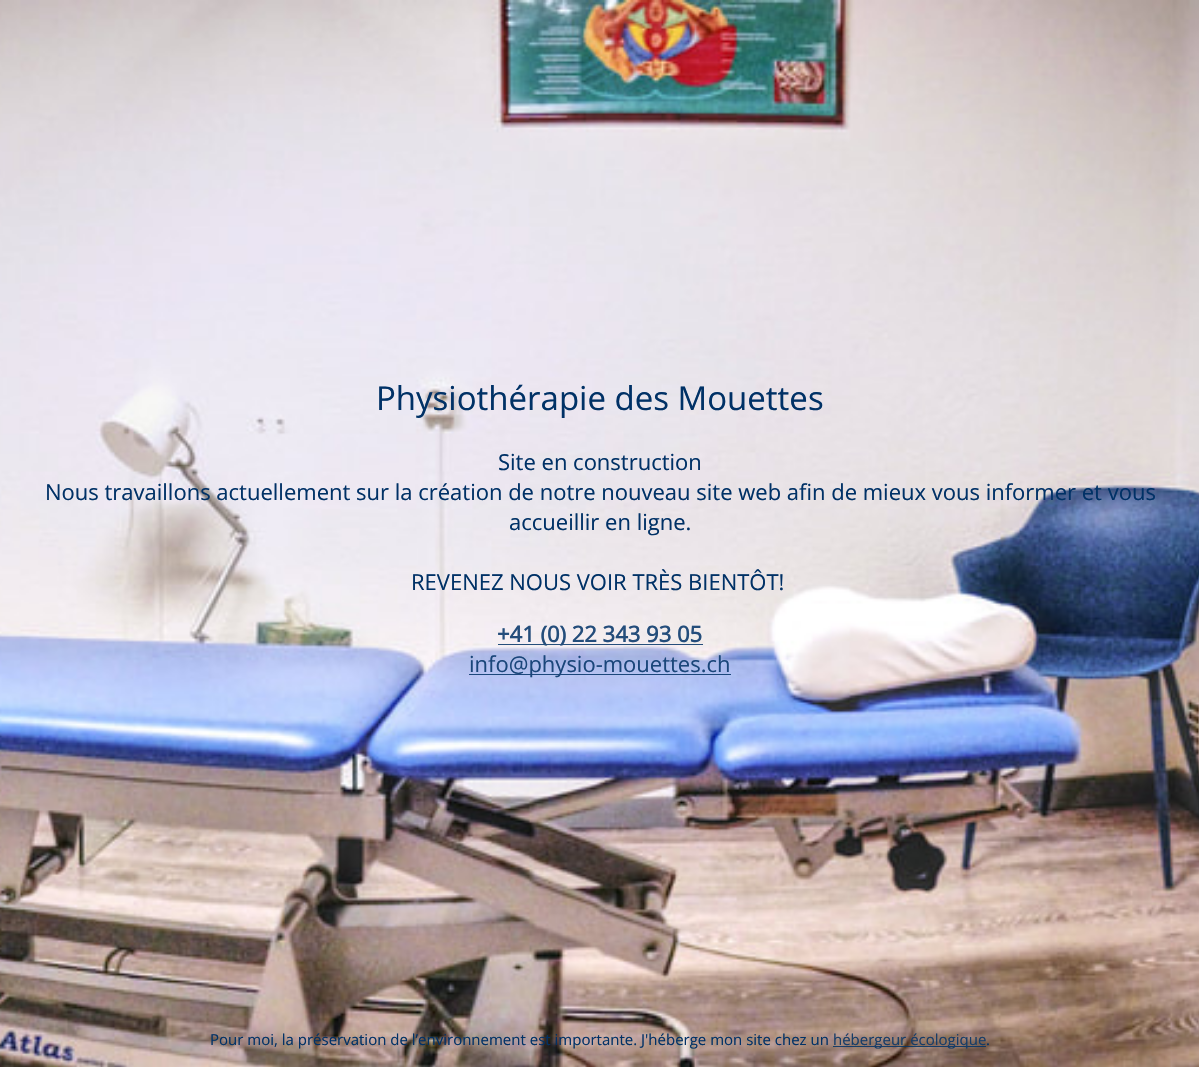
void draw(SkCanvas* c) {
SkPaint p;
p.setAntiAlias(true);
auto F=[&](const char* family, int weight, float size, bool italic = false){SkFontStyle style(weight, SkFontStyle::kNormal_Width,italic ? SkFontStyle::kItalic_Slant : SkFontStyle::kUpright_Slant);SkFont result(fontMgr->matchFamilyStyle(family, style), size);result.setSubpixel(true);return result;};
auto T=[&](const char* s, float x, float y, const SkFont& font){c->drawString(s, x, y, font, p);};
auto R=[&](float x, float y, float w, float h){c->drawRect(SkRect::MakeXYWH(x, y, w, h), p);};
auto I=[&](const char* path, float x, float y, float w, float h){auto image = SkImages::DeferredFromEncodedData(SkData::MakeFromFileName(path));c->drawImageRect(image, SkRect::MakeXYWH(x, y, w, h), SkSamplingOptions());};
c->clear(0xffffffff);
I("1.png",0,0,1199,1067);
auto f1 = F("Open Sans",400,33);
p.setColor(0xff003166);
T("Physiothérapie des Mouettes",376,410,f1);
auto f2 = F("Open Sans",400,22);
T("Site en construction",498,470,f2);
T("Nous travaillons actuellement sur la création de notre nouveau site web afin de mieux vous informer et vous",45,500,f2);
T("accueillir en ligne.",509,530,f2);
T("REVENEZ NOUS VOIR TRÈS BIENTÔT!",411,590,f2);
p.setColor(0xd9003166);
R(498,644,205,1);
auto f3 = F("Open Sans",700,22);
p.setColor(0xff244d7b);
T("+41 (0) 22 343 93 05",497,642,f3);
p.setColor(0xd9003166);
R(469,674,262,1);
p.setColor(0xff1a467a);
T("info@physio-mouettes.ch",469,672,f2);
auto f4 = F("Open Sans",400,15);
p.setColor(0xff003166);
T("Pour moi, la préservation de l’environnement est importante. J'héberge mon site chez un",210,1045,f4);
p.setColor(0xd9003166);
R(833,1046,153,1);
p.setColor(0xff163c67);
T("hébergeur écologique",833,1045,f4);
p.setColor(0xff003166);
T(".",986,1045,f4);
}
